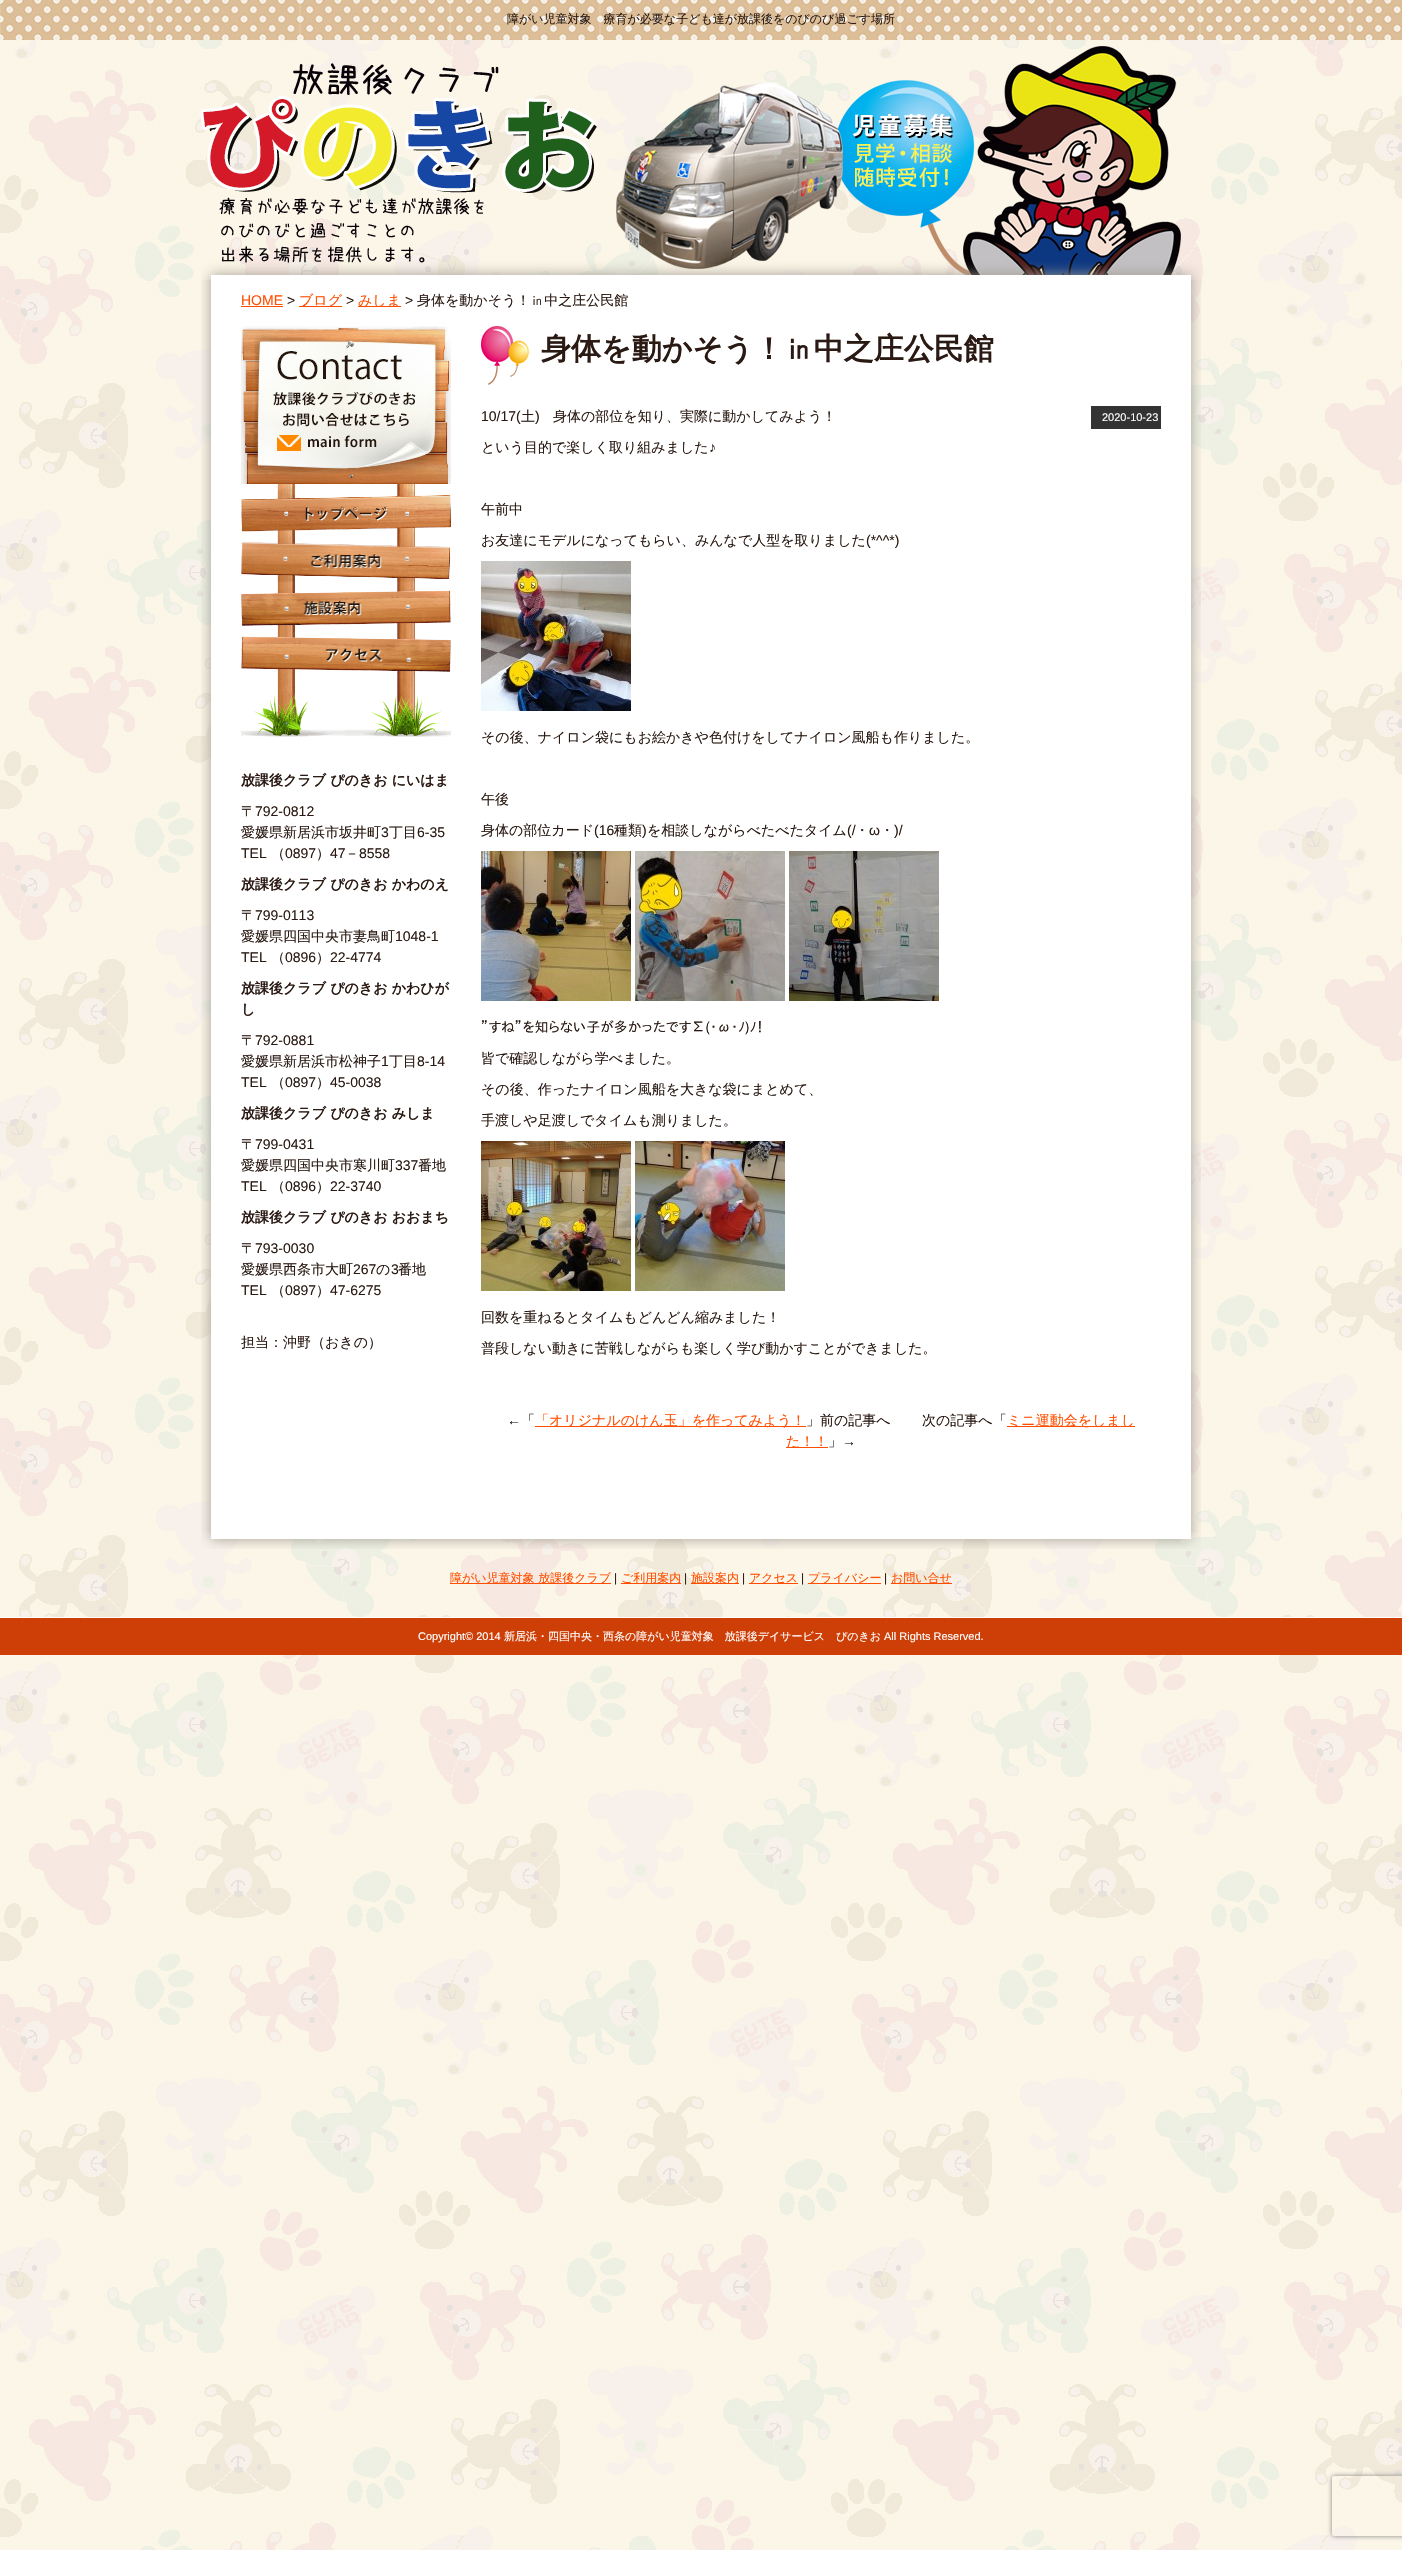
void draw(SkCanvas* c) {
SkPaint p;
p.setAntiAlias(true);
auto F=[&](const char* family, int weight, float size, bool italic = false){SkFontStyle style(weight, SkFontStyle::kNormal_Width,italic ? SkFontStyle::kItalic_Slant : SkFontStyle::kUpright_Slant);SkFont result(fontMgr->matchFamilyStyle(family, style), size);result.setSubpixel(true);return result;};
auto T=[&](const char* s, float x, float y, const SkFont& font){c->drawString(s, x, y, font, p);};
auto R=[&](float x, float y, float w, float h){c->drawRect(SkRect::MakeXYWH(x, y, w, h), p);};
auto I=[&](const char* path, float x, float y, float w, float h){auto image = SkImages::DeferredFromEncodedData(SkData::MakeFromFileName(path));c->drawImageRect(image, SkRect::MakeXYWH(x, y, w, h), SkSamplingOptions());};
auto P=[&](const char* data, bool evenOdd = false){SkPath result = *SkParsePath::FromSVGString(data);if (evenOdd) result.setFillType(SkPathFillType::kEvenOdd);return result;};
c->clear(0xffffffff);
I("1.png",0,40,1402,2510);
I("2.png",0,0,1402,40);
auto f1 = F("WenQuanYi Zen Hei",500,12);
p.setColor(0xff2a1a13);
T("障がい児童対象　療育が必要な子ども達が放課後をのびのび過ごす場所",507,23,f1);
I("3.png",201,46,1000,234);
I("4.png",201,63,396,130);
I("5.png",201,280,1000,1252);
auto f2 = F("Liberation Sans",400,14);
p.setColor(0xffff4e00);
T("HOME",241,305,f2);
R(241,306,42,1);
p.setColor(0xff2a1a13);
T(">",287,305,f2);
p.setColor(0xffff4e00);
R(299,306,43,1);
auto f3 = F("WenQuanYi Zen Hei",500,14);
T("ブログ",299,305,f3);
p.setColor(0xff2a1a13);
T(">",346,305,f2);
p.setColor(0xffff4e00);
R(358,306,43,1);
T("みしま",358,305,f3);
p.setColor(0xff2a1a13);
T(">",405,305,f2);
T("身体を動かそう！㏌中之庄公民館",417,305,f3);
I("6.png",241,484,210,253);
I("7.png",241,326,210,158);
I("8.png",241,495,210,37);
I("9.png",241,542,209,37);
I("10.png",241,590,210,36);
I("11.png",241,636,210,36);
auto f4 = F("WenQuanYi Zen Hei",700,14);
T("放課後クラブ ぴのきお にいはま",241,785,f4);
T("〒",241,816,f3);
T("792-0812",255,816,f2);
T("愛媛県新居浜市坂井町",241,837,f3);
T("3",381,837,f2);
T("丁目",389,837,f3);
T("6-35",417,837,f2);
T("TEL",241,858,f2);
T("（",271,858,f3);
T("0897",285,858,f2);
T("）",316,858,f3);
T("47",330,858,f2);
T("－",345,858,f3);
T("8558",359,858,f2);
T("放課後クラブ ぴのきお かわのえ",241,889,f4);
T("〒",241,920,f3);
T("799-0113",255,920,f2);
T("愛媛県四国中央市妻鳥町",241,941,f3);
T("1048-1",395,941,f2);
T("TEL",241,962,f2);
T("（",271,962,f3);
T("0896",285,962,f2);
T("）",316,962,f3);
T("22-4774",330,962,f2);
T("放課後クラブ ぴのきお かわひが",241,993,f4);
T("し",241,1014,f4);
T("〒",241,1045,f3);
T("792-0881",255,1045,f2);
T("愛媛県新居浜市松神子",241,1066,f3);
T("1",381,1066,f2);
T("丁目",389,1066,f3);
T("8-14",417,1066,f2);
T("TEL",241,1087,f2);
T("（",271,1087,f3);
T("0897",285,1087,f2);
T("）",316,1087,f3);
T("45-0038",330,1087,f2);
T("放課後クラブ ぴのきお みしま",241,1118,f4);
T("〒",241,1149,f3);
T("799-0431",255,1149,f2);
T("愛媛県四国中央市寒川町",241,1170,f3);
T("337",395,1170,f2);
T("番地",418,1170,f3);
T("TEL",241,1191,f2);
T("（",271,1191,f3);
T("0896",285,1191,f2);
T("）",316,1191,f3);
T("22-3740",330,1191,f2);
T("放課後クラブ ぴのきお おおまち",241,1222,f4);
T("〒",241,1253,f3);
T("793-0030",255,1253,f2);
T("愛媛県西条市大町",241,1274,f3);
T("267",353,1274,f2);
T("の",376,1274,f3);
T("3",391,1274,f2);
T("番地",398,1274,f3);
T("TEL",241,1295,f2);
T("（",271,1295,f3);
T("0897",285,1295,f2);
T("）",316,1295,f3);
T("47-6275",330,1295,f2);
T("担当：沖野（おきの）",241,1347,f3);
I("12.png",481,326,48,59);
auto f5 = F("WenQuanYi Zen Hei",700,30);
T("身体を動かそう！㏌中之庄公民館",541,359,f5);
T("10/17(",481,421,f2);
T("土",521,421,f3);
T(")",535,421,f2);
T("身体の部位を知り、実際に動かしてみよう！",553,421,f3);
p.setColor(0xff333333);
R(1091,406,70,23);
auto f6 = F("Liberation Sans",400,11);
p.setColor(0xffffffff);
T("2020-10-23",1102,421,f6);
p.setColor(0xff2a1a13);
T("という目的で楽しく取り組みました",481,452,f3);
T("♪",709,452,f2);
T("午前中",481,514,f3);
T("お友達にモデルになってもらい、みんなで人型を取りました",481,545,f3);
T("(*^^*)",866,545,f2);
I("13.png",481,561,150,150);
T("その後、ナイロン袋にもお絵かきや色付けをしてナイロン風船も作りました。",481,742,f3);
T("午後",481,804,f3);
T("身体の部位カード",481,835,f3);
T("(16",594,835,f2);
T("種類",614,835,f3);
T(")",642,835,f2);
T("を相談しながらべたべたタイム",647,835,f3);
T("(/",847,835,f2);
T("・",855,835,f3);
T("ω",869,835,f2);
T("・",880,835,f3);
T(")/",894,835,f2);
I("14.png",481,851,150,150);
I("15.png",635,851,150,150);
I("16.png",789,851,150,150);
auto f7 = F("IPAPGothic",400,14);
T("”すね”を知らない子が多かったですΣ(･ω･ﾉ)ﾉ！",481,1032,f7);
T("皆で確認しながら学べました。",481,1063,f3);
T("その後、作ったナイロン風船を大きな袋にまとめて、",481,1094,f3);
T("手渡しや足渡しでタイムも測りました。",481,1125,f3);
I("17.png",481,1141,150,150);
I("18.png",635,1141,150,150);
T("回数を重ねるとタイムもどんどん縮みました！",481,1322,f3);
T("普段しない動きに苦戦しながらも楽しく学び動かすことができました。",481,1353,f3);
T("←",507,1425,f2);
T("「",521,1425,f3);
p.setColor(0xffff4e00);
R(535,1426,271,1);
T("「オリジナルのけん玉」を作ってみよう！",535,1425,f3);
p.setColor(0xff2a1a13);
T("」前の記事へ",806,1425,f3);
T("次の記事へ「",922,1425,f3);
p.setColor(0xffff4e00);
R(1007,1426,128,1);
T("ミニ運動会をしまし",1007,1425,f3);
R(786,1447,42,1);
T("た！！",786,1446,f3);
p.setColor(0xff2a1a13);
T("」",828,1446,f3);
T("→",842,1446,f2);
I("19.png",201,1532,1000,17);
p.setColor(0xffff4e00);
R(450,1583,161,1);
T("障がい児童対象 放課後クラブ",450,1582,f1);
auto f8 = F("Liberation Sans",400,12);
p.setColor(0xff2a1a13);
T("|",614,1582,f8);
p.setColor(0xffff4e00);
R(621,1583,60,1);
T("ご利用案内",621,1582,f1);
p.setColor(0xff2a1a13);
T("|",684,1582,f8);
p.setColor(0xffff4e00);
R(691,1583,48,1);
T("施設案内",691,1582,f1);
p.setColor(0xff2a1a13);
T("|",742,1582,f8);
p.setColor(0xffff4e00);
R(749,1583,49,1);
T("アクセス",749,1582,f1);
p.setColor(0xff2a1a13);
T("|",801,1582,f8);
p.setColor(0xffff4e00);
R(808,1583,73,1);
T("プライバシー",808,1582,f1);
p.setColor(0xff2a1a13);
T("|",884,1582,f8);
p.setColor(0xffff4e00);
R(891,1583,61,1);
T("お問い合せ",891,1582,f1);
p.setColor(0xffce3f07);
R(0,1618,1402,37);
p.setColor(0xffffffff);
R(0,1617,1402,1);
T("Copyright© 2014",418,1640,f6);
auto f9 = F("WenQuanYi Zen Hei",500,11);
T("新居浜・四国中央・西条の障がい児童対象　放課後デイサービス　ぴのきお",504,1640,f9);
T("All Rights Reserved.",884,1640,f6);
c->save();
c->clipPath(P("M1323 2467h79v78h-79zm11 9h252c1 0 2 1 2 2v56c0 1-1 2-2 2h-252c-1 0-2-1-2-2v-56c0-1 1-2 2-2z",true),true);
p.setColor(0xff808080);
p.setMaskFilter(SkMaskFilter::MakeBlur(kNormal_SkBlurStyle, 2.5));
c->drawRoundRect(SkRect::MakeXYWH(1332,2476,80,60),2,2,p);
p.setMaskFilter(nullptr);
c->restore();
}
